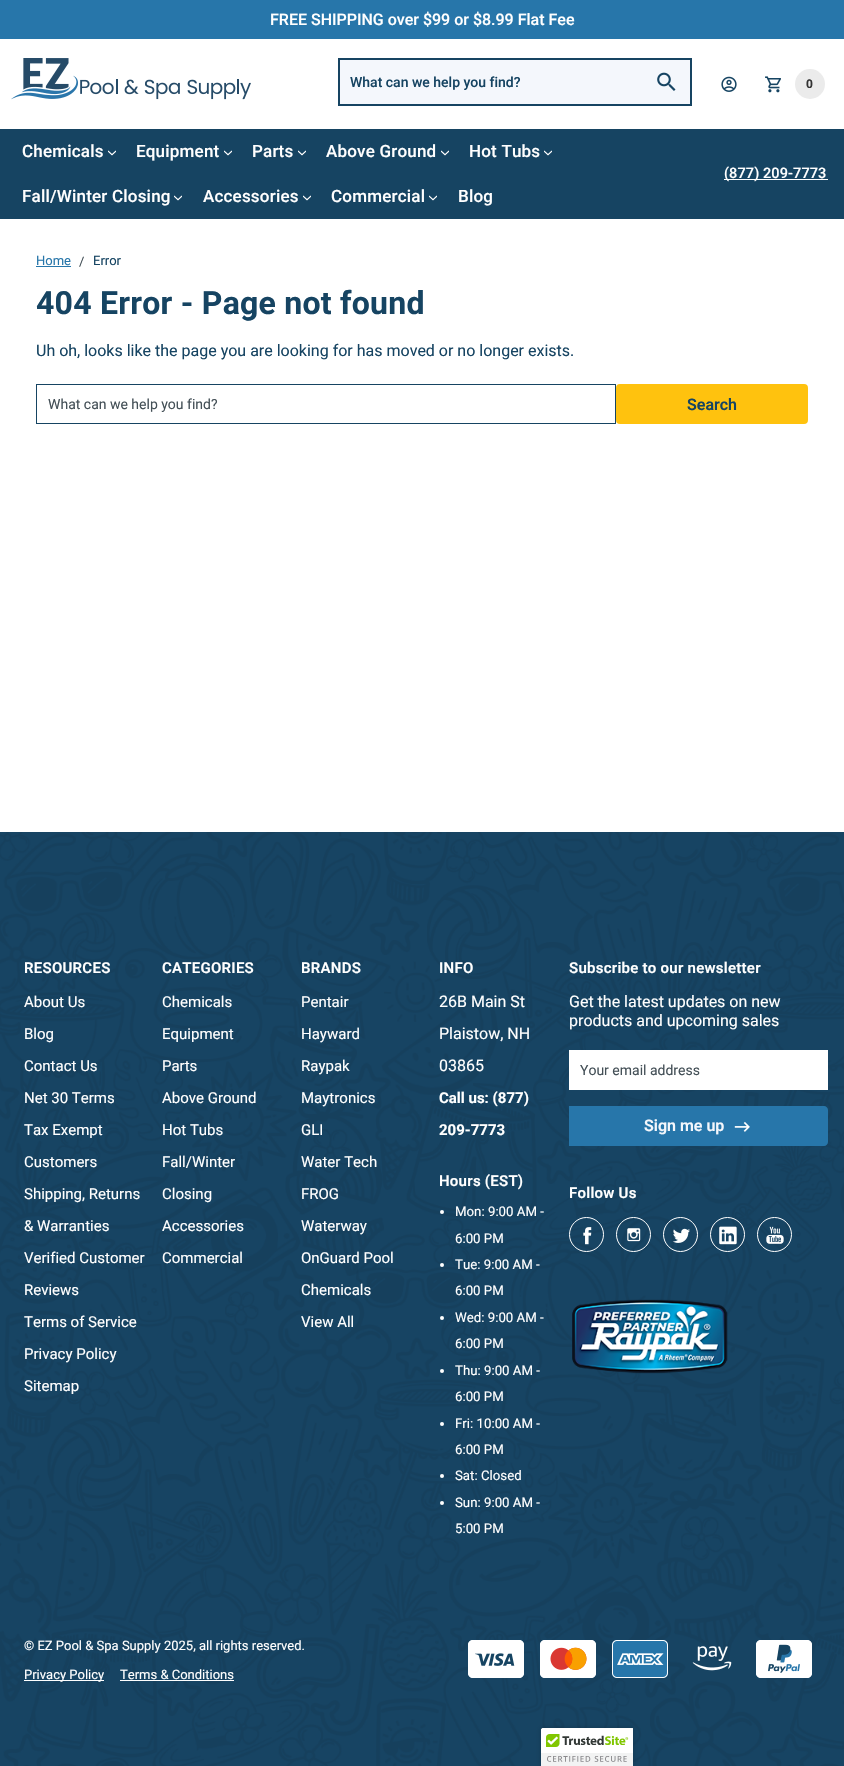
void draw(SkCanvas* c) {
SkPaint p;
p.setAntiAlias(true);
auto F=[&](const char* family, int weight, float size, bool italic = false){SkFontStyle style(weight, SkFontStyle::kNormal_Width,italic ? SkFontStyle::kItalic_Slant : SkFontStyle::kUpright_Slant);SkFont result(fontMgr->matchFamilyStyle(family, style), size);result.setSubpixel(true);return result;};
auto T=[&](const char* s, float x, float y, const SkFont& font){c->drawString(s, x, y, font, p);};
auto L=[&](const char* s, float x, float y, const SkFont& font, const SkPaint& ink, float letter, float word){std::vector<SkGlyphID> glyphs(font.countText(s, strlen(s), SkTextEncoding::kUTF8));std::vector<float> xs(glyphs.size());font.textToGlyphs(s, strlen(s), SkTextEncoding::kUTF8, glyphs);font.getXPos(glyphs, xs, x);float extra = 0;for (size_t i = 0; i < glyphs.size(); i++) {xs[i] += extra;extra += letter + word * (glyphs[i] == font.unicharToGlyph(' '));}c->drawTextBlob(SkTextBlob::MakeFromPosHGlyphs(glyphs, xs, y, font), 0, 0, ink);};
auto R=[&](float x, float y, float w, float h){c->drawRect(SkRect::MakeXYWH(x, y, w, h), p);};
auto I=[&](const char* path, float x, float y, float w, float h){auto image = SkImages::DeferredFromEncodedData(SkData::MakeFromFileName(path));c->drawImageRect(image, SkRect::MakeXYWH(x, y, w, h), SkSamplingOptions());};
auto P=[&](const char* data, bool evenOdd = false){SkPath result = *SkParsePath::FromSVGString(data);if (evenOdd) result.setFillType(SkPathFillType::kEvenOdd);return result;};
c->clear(0xffffffff);
p.setColor(0xff2776aa);
R(0,0,844,39);
auto f1 = F("Roboto",500,16);
p.setColor(0xffffffff);
T("FREE SHIPPING over $99 or $8.99 Flat Fee",270,25,f1);
I("1.png",11,58,240,42);
p.setColor(0xfff4f7fc);
c->drawRect(SkRect::MakeXYWH(339,59,352,46),p);
p.setStroke(true);
p.setStrokeWidth(2);
p.setColor(0xff164462);
c->drawRect(SkRect::MakeXYWH(339,59,352,46),p);
auto f2 = F("Roboto",500,14);
p.setStroke(false);
T("What can we help you find?",350,87,f2);
I("2.png",657,72,19,19);
I("3.png",721,76,16,16);
I("4.png",765,76,16,17);
p.setColor(0xffebebeb);
c->drawCircle(810,84,15,p);
auto f3 = F("Roboto",700,12);
p.setColor(0xff333333);
L("0",806,88,f3,p,.2,0);
p.setColor(0xff164462);
R(0,129,844,90);
auto f4 = F("Roboto",500,17);
p.setColor(0xffffffff);
L("Chemicals",22,157,f4,p,.2,0);
I("5.png",108,150,8,6);
L("Equipment",136,157,f4,p,.2,0);
I("5.png",224,150,8,6);
L("Parts",252,157,f4,p,.2,0);
I("5.png",298,150,8,6);
L("Above Ground",326,157,f4,p,.2,0);
I("5.png",441,150,8,6);
L("Hot Tubs",469,157,f4,p,.2,0);
I("5.png",544,150,8,6);
L("Fall/Winter Closing",22,202,f4,p,.2,0);
I("5.png",174,195,8,6);
L("Accessories",203,202,f4,p,.2,0);
I("5.png",303,195,8,6);
L("Commercial",331,202,f4,p,.2,0);
I("5.png",429,195,8,6);
L("Blog",458,202,f4,p,.2,0);
R(724,179,104,1);
auto f5 = F("Roboto",500,14.5);
L("(877) 209-7773",724,178,f5,p,.1,0);
auto f6 = F("Roboto",400,13);
p.setColor(0xff2776aa);
T("Home",36,265,f6);
R(36,266,35,1);
p.setColor(0xff445057);
T("/",79,266,f6);
p.setColor(0xff164462);
T("Error",93,265,f6);
auto f7 = F("Roboto",700,32);
L("404 Error - Page not found",36,314,f7,p,.25,0);
auto f8 = F("Roboto",400,16);
T("Uh oh, looks like the page you are looking for has moved or no longer exists.",36,356,f8);
p.setStroke(true);
p.setStrokeWidth(1);
c->drawRect(SkRect::MakeXYWH(36.5,384.5,579,39),p);
auto f9 = F("Roboto",400,14);
p.setStroke(false);
p.setColor(0xff445057);
T("What can we help you find?",48,409,f9);
p.setColor(0xffffc20e);
c->drawRoundRect(SkRect::MakeXYWH(617.5,385.5,189,37),2.5,2.5,p);
p.setStroke(true);
p.setStrokeWidth(3);
c->drawRoundRect(SkRect::MakeXYWH(617.5,385.5,189,37),2.5,2.5,p);
auto f10 = F("Roboto",600,16);
p.setStroke(false);
p.setColor(0xff164462);
T("Search",687,410,f10);
I("6.png",0,832,844,934);
auto f11 = F("Roboto",600,15);
p.setColor(0xffffffff);
L("RESOURCES",24,973,f11,p,.25,0);
auto f12 = F("Roboto",400,15);
T("About Us",24,1007,f12);
T("Blog",24,1039,f12);
T("Contact Us",24,1071,f12);
T("Net 30 Terms",24,1103,f12);
T("Tax Exempt",24,1135,f12);
T("Customers",24,1167,f12);
T("Shipping, Returns",24,1199,f12);
T("& Warranties",24,1231,f12);
T("Verified Customer",24,1263,f12);
T("Reviews",24,1295,f12);
T("Terms of Service",24,1327,f12);
T("Privacy Policy",24,1359,f12);
T("Sitemap",24,1391,f12);
L("CATEGORIES",162,973,f11,p,.25,0);
T("Chemicals",162,1007,f12);
T("Equipment",162,1039,f12);
T("Parts",162,1071,f12);
T("Above Ground",162,1103,f12);
T("Hot Tubs",162,1135,f12);
T("Fall/Winter",162,1167,f12);
T("Closing",162,1199,f12);
T("Accessories",162,1231,f12);
T("Commercial",162,1263,f12);
L("BRANDS",301,973,f11,p,.25,0);
T("Pentair",301,1007,f12);
T("Hayward",301,1039,f12);
T("Raypak",301,1071,f12);
T("Maytronics",301,1103,f12);
T("GLI",301,1135,f12);
T("Water Tech",301,1167,f12);
T("FROG",301,1199,f12);
T("Waterway",301,1231,f12);
T("OnGuard Pool",301,1263,f12);
T("Chemicals",301,1295,f12);
T("View All",301,1327,f12);
L("INFO",439,973,f11,p,.25,0);
T("26B Main St",439,1007,f8);
T("Plaistow, NH",439,1039,f8);
T("03865",439,1071,f8);
auto f13 = F("Roboto",700,15);
T("Call us: (877)",439,1103,f13);
T("209-7773",439,1135,f13);
L("Hours (EST)",439,1186,f11,p,.25,0);
c->drawCircle(442,1212,2,p);
auto f14 = F("Roboto",400,13.25);
T("Mon: 9:00 AM -",455,1216,f14);
T("6:00 PM",455,1243,f14);
c->drawCircle(442,1265,2,p);
T("Tue: 9:00 AM -",455,1269,f14);
T("6:00 PM",455,1295,f14);
c->drawCircle(442,1318,2,p);
T("Wed: 9:00 AM -",455,1322,f14);
T("6:00 PM",455,1348,f14);
c->drawCircle(442,1371,2,p);
T("Thu: 9:00 AM -",455,1375,f14);
T("6:00 PM",455,1401,f14);
c->drawCircle(442,1424,2,p);
T("Fri: 10:00 AM -",455,1428,f14);
T("6:00 PM",455,1454,f14);
c->drawCircle(442,1476,2,p);
T("Sat: Closed",455,1480,f14);
c->drawCircle(442,1503,2,p);
T("Sun: 9:00 AM -",455,1507,f14);
T("5:00 PM",455,1533,f14);
L("Subscribe to our newsletter",569,973,f11,p,.25,0);
T("Get the latest updates on new",569,1007,f8);
T("products and upcoming sales",569,1026,f8);
R(569,1050,259,40);
p.setColor(0xff445057);
T("Your email address",580,1075,f9);
p.setColor(0xff2776aa);
c->drawPath(P("M569 1106h255c2 0 4 2 4 4v32c0 2-2 4-4 4h-255z"),p);
p.setColor(0xfff4f7fc);
T("Sign me up",644,1131,f10);
I("7.png",734,1121,16,11);
p.setColor(0xffffffff);
L("Follow Us",569,1198,f11,p,.25,0);
p.setStroke(true);
p.setStrokeWidth(1);
c->drawCircle(586.5,1234.5,17,p);
I("8.png",583,1227,9,18);
I("9.png",627,1228,14,14);
c->drawCircle(633.5,1234.5,17,p);
c->drawCircle(680.5,1234.5,17,p);
I("10.png",672,1228,18,15);
c->drawCircle(727.5,1234.5,17,p);
I("11.png",719,1226,18,19);
c->drawCircle(774.5,1234.5,17,p);
I("12.png",766,1226,18,18);
I("13.png",572,1299,156,75);
p.setStroke(false);
T("© EZ Pool & Spa Supply 2025, all rights reserved.",24,1650,f6);
R(24,1680,80,1);
T("Privacy Policy",24,1679,f6);
T("Terms & Conditions",120,1679,f6);
R(120,1680,114,1);
I("14.png",468,1640,56,38);
I("15.png",540,1640,56,38);
I("16.png",612,1640,56,38);
I("17.png",692,1646,40,25);
I("18.png",756,1640,56,38);
p.setColor(0x33000000);
p.setMaskFilter(SkMaskFilter::MakeBlur(kNormal_SkBlurStyle, 2.5));
c->drawRoundRect(SkRect::MakeXYWH(541,1728,92,38),2,2,p);
p.setMaskFilter(nullptr);
p.setColor(0xffffffff);
c->drawPath(P("M543 1728h90v38h-92v-36c0-1 1-2 2-2z"),p);
I("19.png",541,1728,92,38);
}
